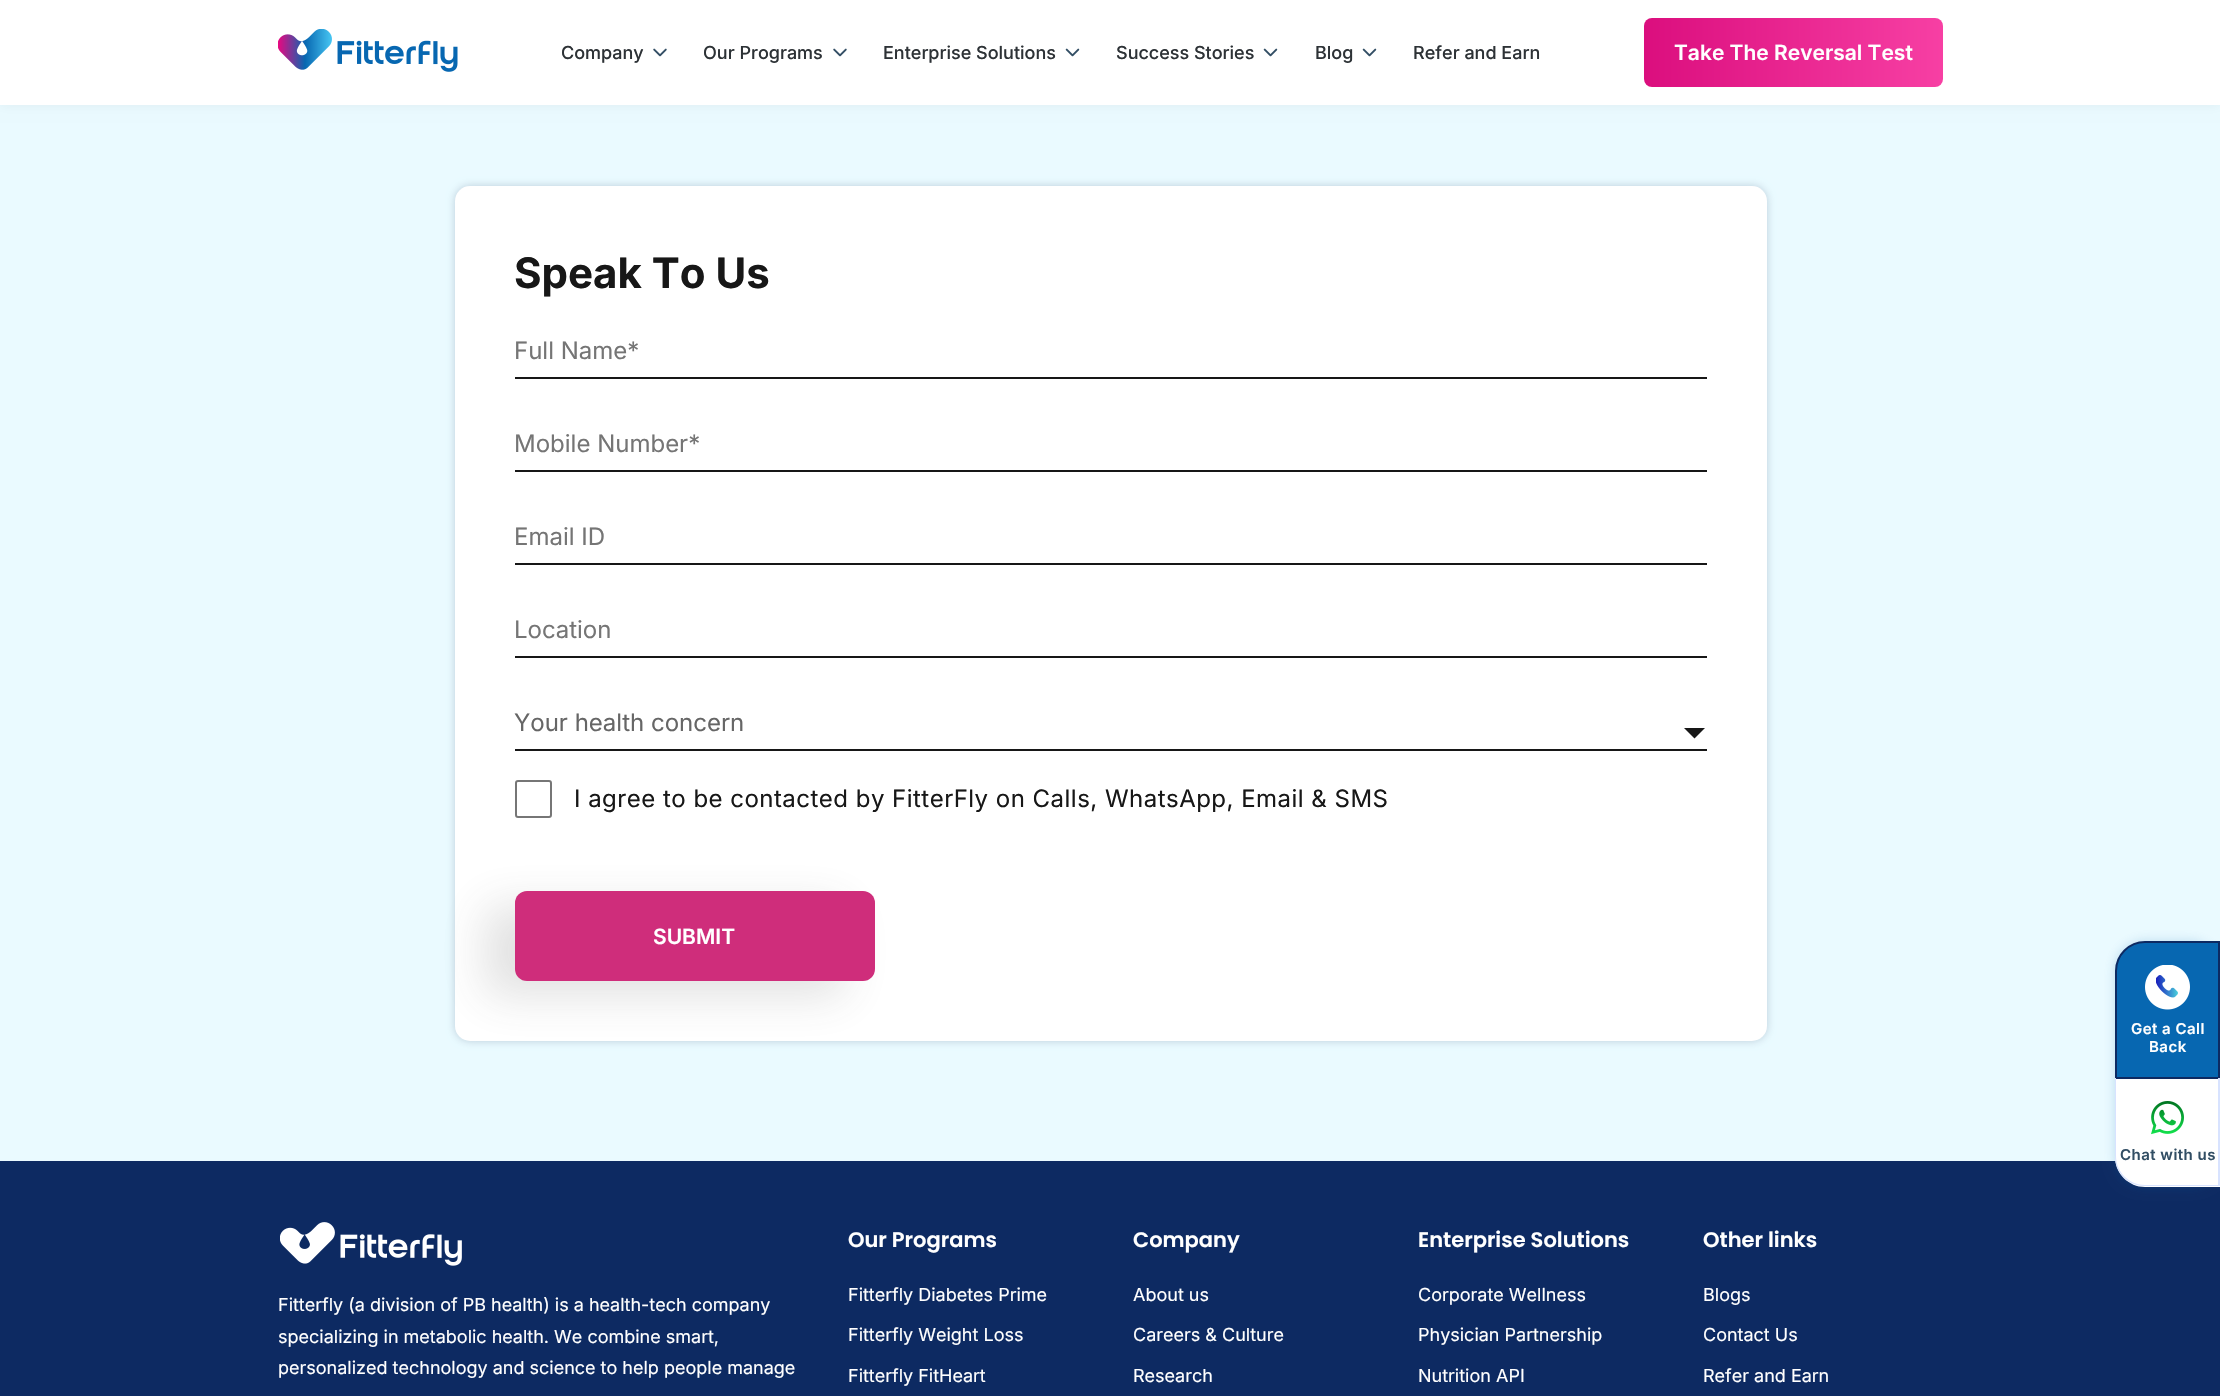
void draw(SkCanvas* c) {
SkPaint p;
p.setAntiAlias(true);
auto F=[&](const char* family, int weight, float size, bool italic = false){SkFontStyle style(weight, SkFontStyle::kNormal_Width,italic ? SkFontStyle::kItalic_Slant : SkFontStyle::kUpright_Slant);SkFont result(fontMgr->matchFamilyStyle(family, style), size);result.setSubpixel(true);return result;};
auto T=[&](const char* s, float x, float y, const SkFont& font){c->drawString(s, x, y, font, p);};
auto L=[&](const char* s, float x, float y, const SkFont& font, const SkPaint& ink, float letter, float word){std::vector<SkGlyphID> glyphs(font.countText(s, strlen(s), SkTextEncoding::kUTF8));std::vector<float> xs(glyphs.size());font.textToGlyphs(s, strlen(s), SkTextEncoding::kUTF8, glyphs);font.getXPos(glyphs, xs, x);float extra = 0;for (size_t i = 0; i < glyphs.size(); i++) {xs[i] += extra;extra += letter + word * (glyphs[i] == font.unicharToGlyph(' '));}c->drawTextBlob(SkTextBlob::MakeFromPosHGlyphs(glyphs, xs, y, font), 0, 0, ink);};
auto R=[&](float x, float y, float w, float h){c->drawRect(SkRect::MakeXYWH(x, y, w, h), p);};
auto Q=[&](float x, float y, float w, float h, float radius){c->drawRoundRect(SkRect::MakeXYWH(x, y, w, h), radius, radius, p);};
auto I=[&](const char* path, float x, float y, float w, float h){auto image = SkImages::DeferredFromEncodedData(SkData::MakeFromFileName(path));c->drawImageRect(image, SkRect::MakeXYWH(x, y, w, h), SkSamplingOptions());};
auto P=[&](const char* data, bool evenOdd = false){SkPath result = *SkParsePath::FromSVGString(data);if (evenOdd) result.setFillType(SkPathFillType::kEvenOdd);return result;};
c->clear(0xffeafaff);
p.setColor(0x0d000000);
p.setMaskFilter(SkMaskFilter::MakeBlur(kNormal_SkBlurStyle, 6));
c->drawRect(SkRect::MakeXYWH(0,0,2220,105),p);
p.setMaskFilter(nullptr);
p.setColor(0xffffffff);
R(0,0,2220,105);
I("1.png",278,29,180,43);
auto f1 = F("Inter",500,18);
p.setColor(0xff2d3236);
T("Company",561,59,f1);
I("2.png",653,48,14,9);
T("Our Programs",703,59,f1);
I("2.png",833,48,14,9);
T("Enterprise Solutions",883,59,f1);
I("3.png",1065,48,15,9);
T("Success Stories",1116,59,f1);
I("3.png",1263,48,15,9);
T("Blog",1315,59,f1);
I("3.png",1362,48,15,9);
T("Refer and Earn",1413,59,f1);
{
const SkColor colors[] = {0xffdb0e7e,0xfff841a5};
const float stops[] = {0,1};
const SkPoint ends[] = {{1644,53}, {1954,52}};
p.setShader(SkGradientShader::MakeLinear(ends, colors, stops, 2, SkTileMode::kClamp));
p.setAlpha(255);
}
Q(1644,18,299,69,8);
auto f2 = F("Inter",600,21);
p.setShader(nullptr);
p.setColor(0xffffffff);
T("Take The Reversal Test",1674,60,f2);
p.setColor(0x33021d45);
p.setMaskFilter(SkMaskFilter::MakeBlur(kNormal_SkBlurStyle, 4));
c->drawRoundRect(SkRect::MakeXYWH(455,186,1312,855),15,15,p);
p.setMaskFilter(nullptr);
p.setColor(0xffffffff);
Q(455,186,1312,855,15);
auto f3 = F("Inter",700,42);
p.setColor(0xff171717);
T("Speak To Us",514,288,f3);
R(515,377,1192,2);
auto f4 = F("Inter",400,24);
p.setColor(0xff757575);
T("Full Name*",514,359,f4);
p.setColor(0xff171717);
R(515,470,1192,2);
p.setColor(0xff757575);
T("Mobile Number*",514,452,f4);
p.setColor(0xff171717);
R(515,563,1192,2);
p.setColor(0xff757575);
T("Email ID",514,545,f4);
p.setColor(0xff171717);
R(515,656,1192,2);
p.setColor(0xff757575);
T("Location",514,638,f4);
p.setColor(0xff171717);
c->drawPath(P("M1705 728h-21l10.5 10.5z"),p);
R(515,749,1192,2);
p.setColor(0xff666666);
T("Your health concern",514,731,f4);
p.setStroke(true);
p.setStrokeWidth(2);
p.setColor(0xff767676);
c->drawRoundRect(SkRect::MakeXYWH(516,781,35,36),2,2,p);
p.setStroke(false);
p.setColor(0xff171717);
L("I agree to be contacted by FitterFly on Calls, WhatsApp, Email & SMS",574,807,f4,p,.48,0);
p.setColor(0x29464646);
p.setMaskFilter(SkMaskFilter::MakeBlur(kNormal_SkBlurStyle, 22.5));
c->drawRoundRect(SkRect::MakeXYWH(485,906,360,90),12,12,p);
p.setMaskFilter(nullptr);
p.setColor(0xffcf2d7b);
Q(515,891,360,90,12);
p.setColor(0xffffffff);
T("SUBMIT",653,944,f2);
p.setColor(0xff0d2a62);
R(0,1161,2220,235);
p.setColor(0x330767b1);
p.setMaskFilter(SkMaskFilter::MakeBlur(kNormal_SkBlurStyle, 6));
c->drawRoundRect(SkRect::MakeXYWH(2115,941,105,246),30,30,p);
p.setMaskFilter(nullptr);
p.setColor(0xff0767b1);
c->drawPath(P("M2145 942h74v136h-103v-107c0-16 13-29 29-29z"),p);
p.setStroke(true);
p.setColor(0xff0d2a62);
c->drawPath(P("M2145 942h74v136h-103v-107c0-16 13-29 29-29z"),p);
I("4.png",2145,965,45,45);
auto f5 = F("Inter",600,15);
p.setStroke(false);
p.setColor(0xffffffff);
L("Get a Call",2131,1034,f5,p,.48,0);
L("Back",2149,1052,f5,p,.48,0);
c->drawPath(P("M2115 1079h105v108h-75c-16.5 0-30-13.5-30-30z"),p);
p.setColor(0xffd8e3ff);
c->drawPath(P("M2115 1078h105v108h-75c-17 0-30-13-30-30zm1 0h102v107h-73c-16 0-29-13-29-29z",true),p);
I("5.png",2151,1101,33,34);
p.setColor(0xff324e64);
L("Chat with us",2120,1160,f5,p,.48,0);
I("6.png",280,1222,182,44);
auto f6 = F("Inter",400,18);
p.setColor(0xffffffff);
T("Fitterfly (a division of PB health) is a health-tech company",278,1311,f6);
T("specializing in metabolic health. We combine smart,",278,1343,f6);
T("personalized technology and science to help people manage",278,1374,f6);
auto f7 = F("Poppins",600,21);
T("Our Programs",848,1247,f7);
T("Fitterfly Diabetes Prime",848,1301,f6);
T("Fitterfly Weight Loss",848,1341,f6);
T("Fitterfly FitHeart",848,1382,f6);
T("Company",1133,1247,f7);
T("About us",1133,1301,f6);
T("Careers & Culture",1133,1341,f6);
T("Research",1133,1382,f6);
T("Enterprise Solutions",1418,1247,f7);
T("Corporate Wellness",1418,1301,f6);
T("Physician Partnership",1418,1341,f6);
T("Nutrition API",1418,1382,f6);
T("Other links",1703,1247,f7);
T("Blogs",1703,1301,f6);
T("Contact Us",1703,1341,f6);
T("Refer and Earn",1703,1382,f6);
}
